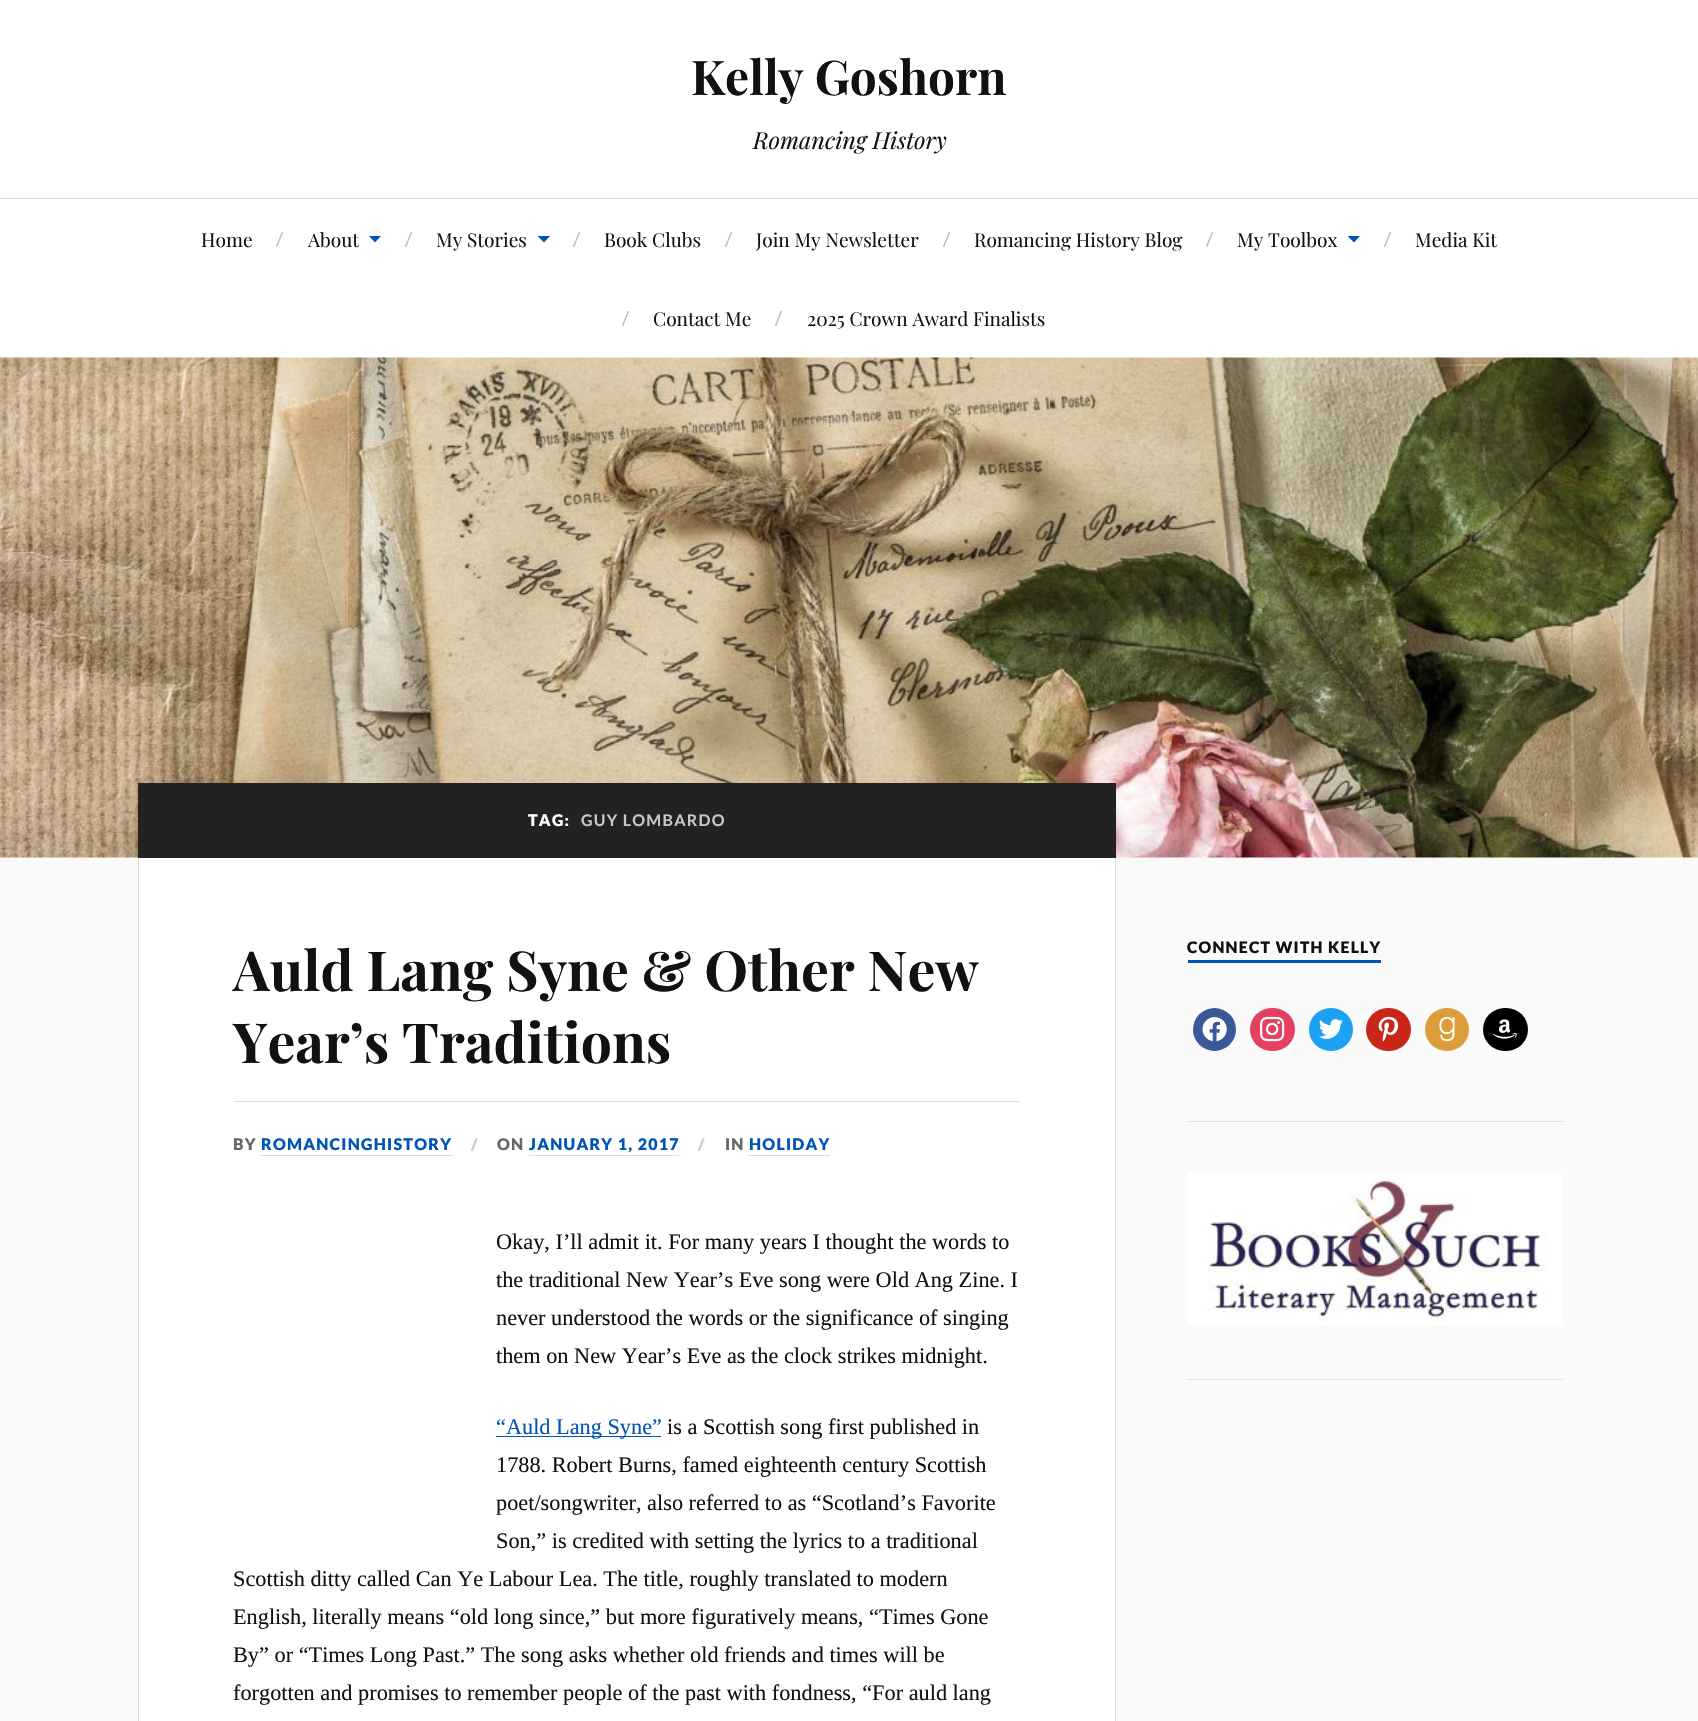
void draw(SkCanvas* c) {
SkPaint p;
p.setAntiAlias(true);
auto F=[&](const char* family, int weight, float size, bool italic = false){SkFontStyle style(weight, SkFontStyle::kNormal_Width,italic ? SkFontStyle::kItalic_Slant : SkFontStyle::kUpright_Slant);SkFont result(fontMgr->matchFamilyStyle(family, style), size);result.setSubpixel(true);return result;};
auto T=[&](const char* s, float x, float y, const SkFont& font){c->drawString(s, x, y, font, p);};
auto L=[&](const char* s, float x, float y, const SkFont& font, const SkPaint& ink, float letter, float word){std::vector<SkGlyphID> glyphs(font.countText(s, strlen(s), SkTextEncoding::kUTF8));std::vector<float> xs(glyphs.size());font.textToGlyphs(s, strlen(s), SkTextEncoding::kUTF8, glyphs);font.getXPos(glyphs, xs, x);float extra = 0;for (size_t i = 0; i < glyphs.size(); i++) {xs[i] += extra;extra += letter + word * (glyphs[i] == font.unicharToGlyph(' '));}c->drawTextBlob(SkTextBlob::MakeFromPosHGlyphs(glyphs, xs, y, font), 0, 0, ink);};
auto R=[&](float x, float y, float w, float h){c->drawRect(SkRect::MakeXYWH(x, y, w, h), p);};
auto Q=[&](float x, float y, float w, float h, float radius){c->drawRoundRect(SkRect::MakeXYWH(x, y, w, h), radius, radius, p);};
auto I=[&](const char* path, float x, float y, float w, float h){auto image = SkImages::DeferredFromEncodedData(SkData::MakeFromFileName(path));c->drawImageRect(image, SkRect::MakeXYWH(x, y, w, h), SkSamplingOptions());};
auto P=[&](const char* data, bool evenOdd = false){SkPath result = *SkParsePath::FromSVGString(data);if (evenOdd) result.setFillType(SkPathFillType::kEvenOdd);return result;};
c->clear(0xfffafafa);
p.setColor(0xffffffff);
R(0,0,1698,198);
auto f1 = F("Playfair Display",700,47.75);
p.setColor(0xff111111);
T("Kelly Goshorn",691,95,f1);
auto f2 = F("Playfair Display",400,23.5,true);
T("Romancing History",753,149,f2);
p.setColor(0xffffffff);
R(0,199,1698,159);
p.setColor(0xffdddddd);
R(0,198,1698,1);
auto f3 = F("Playfair Display",400,19.1);
p.setColor(0xff111111);
T("Home",201,247,f3);
auto f4 = F("Lato",400,19);
p.setColor(0xffbbbbbb);
T("/",276,246,f4);
p.setColor(0xff111111);
T("About",308,247,f3);
p.setColor(0xff0054b5);
c->drawPath(P("M369 236h12l-6 6.5z"),p);
p.setColor(0xffbbbbbb);
T("/",405,246,f4);
p.setColor(0xff111111);
T("My Stories",436,247,f3);
p.setColor(0xff0054b5);
c->drawPath(P("M537.5 236h12.5l-6 6.5z"),p);
p.setColor(0xffbbbbbb);
T("/",573,246,f4);
p.setColor(0xff111111);
T("Book Clubs",604,247,f3);
p.setColor(0xffbbbbbb);
T("/",725,246,f4);
p.setColor(0xff111111);
T("Join My Newsletter",756,247,f3);
p.setColor(0xffbbbbbb);
T("/",943,246,f4);
p.setColor(0xff111111);
T("Romancing History Blog",974,247,f3);
p.setColor(0xffbbbbbb);
T("/",1206,246,f4);
p.setColor(0xff111111);
T("My Toolbox",1237,247,f3);
p.setColor(0xff0054b5);
c->drawPath(P("M1347.5 236h12.5l-6 6.5z"),p);
p.setColor(0xffbbbbbb);
T("/",1384,246,f4);
p.setColor(0xff111111);
T("Media Kit",1415,247,f3);
p.setColor(0xffbbbbbb);
T("/",622,325,f4);
p.setColor(0xff111111);
T("Contact Me",653,326,f3);
p.setColor(0xffbbbbbb);
T("/",775,325,f4);
p.setColor(0xff111111);
T("2025 Crown Award Finalists",807,326,f3);
I("1.png",0,357,1698,501);
p.setColor(0xff222222);
R(138,783,978,75);
auto f5 = F("Lato",900,16);
p.setColor(0xffffffff);
L("TAG:",528,826,f5,p,1.25,0);
auto f6 = F("Lato",700,16);
p.setColor(0xffc8c8c8);
L("GUY LOMBARDO",581,826,f6,p,1.25,0);
p.setColor(0xffffffff);
R(139,858,976,863);
p.setColor(0xffdddddd);
R(1115,858,1,863);
R(138,858,1,863);
auto f7 = F("Playfair Display",700,55.25);
p.setColor(0xff111111);
T("Auld Lang Syne & Other New",233,991,f7);
T("Year’s Traditions",233,1063,f7);
p.setColor(0xffdddddd);
R(234,1101,786,1);
p.setColor(0xff666666);
L("BY",233,1150,f5,p,1.25,0);
p.setColor(0xff0054b5);
L("ROMANCINGHISTORY",261,1150,f5,p,1.25,0);
p.setColor(0xffdddddd);
R(261,1155,192,1);
p.setColor(0xffc8c8c8);
L("/",471,1150,f5,p,1.25,0);
p.setColor(0xff666666);
L("ON",497,1150,f5,p,1.25,0);
p.setColor(0xff0054b5);
L("JANUARY 1, 2017",529,1150,f5,p,1.25,0);
p.setColor(0xffdddddd);
R(529,1155,150,1);
p.setColor(0xffc8c8c8);
L("/",698,1150,f5,p,1.25,0);
p.setColor(0xff666666);
L("IN",725,1150,f5,p,1.25,0);
p.setColor(0xff0054b5);
L("HOLIDAY",749,1150,f5,p,1.25,0);
p.setColor(0xffdddddd);
R(749,1155,81,1);
auto f8 = F("Liberation Serif",400,22.3);
p.setColor(0xff111111);
T("Okay, I’ll admit it. For many years I thought the words to",496,1249,f8);
T("the traditional New Year’s Eve song were Old Ang Zine. I",496,1287,f8);
T("never understood the words or the significance of singing",496,1325,f8);
T("them on New Year’s Eve as the clock strikes midnight.",496,1363,f8);
p.setColor(0xff0054b5);
R(496,1436,165,1);
T("“Auld Lang Syne”",496,1434,f8);
p.setColor(0xff111111);
T("is a Scottish song first published in",667,1434,f8);
T("1788. Robert Burns, famed eighteenth century Scottish",496,1472,f8);
T("poet/songwriter, also referred to as “Scotland’s Favorite",496,1510,f8);
T("Son,” is credited with setting the lyrics to a traditional",496,1548,f8);
T("Scottish ditty called Can Ye Labour Lea. The title, roughly translated to modern",233,1586,f8);
T("English, literally means “old long since,” but more figuratively means, “Times Gone",233,1624,f8);
T("By” or “Times Long Past.” The song asks whether old friends and times will be",233,1662,f8);
T("forgotten and promises to remember people of the past with fondness, “For auld lang",233,1700,f8);
p.setColor(0xff0054b5);
R(1188,960,193,3);
auto f9 = F("Lato",900,15.75);
p.setColor(0xff111111);
L("CONNECT WITH KELLY",1187,953,f9,p,1.25,0);
p.setColor(0xff3b5998);
c->drawCircle(1214.5,1029.5,21.5,p);
I("2.png",1202,1017,25,25);
p.setColor(0xffe4405f);
Q(1250,1008,45,43,21.5);
I("3.png",1260,1016,25,26);
p.setColor(0xff1da1f2);
Q(1309,1008,44,43,21.5);
I("4.png",1319,1019,24,20);
p.setColor(0xffc92619);
Q(1366,1008,45,43,21.5);
I("5.png",1378,1016,21,26);
p.setColor(0xffdd9d3b);
Q(1425,1008,44,43,21.5);
I("6.png",1439,1016,16,26);
p.setColor(0xff000000);
Q(1483,1008,45,43,21.5);
I("7.png",1492,1019,25,20);
p.setColor(0xffdddddd);
R(1188,1121,375,1);
I("8.png",1188,1173,374,152);
R(1188,1379,375,1);
}
